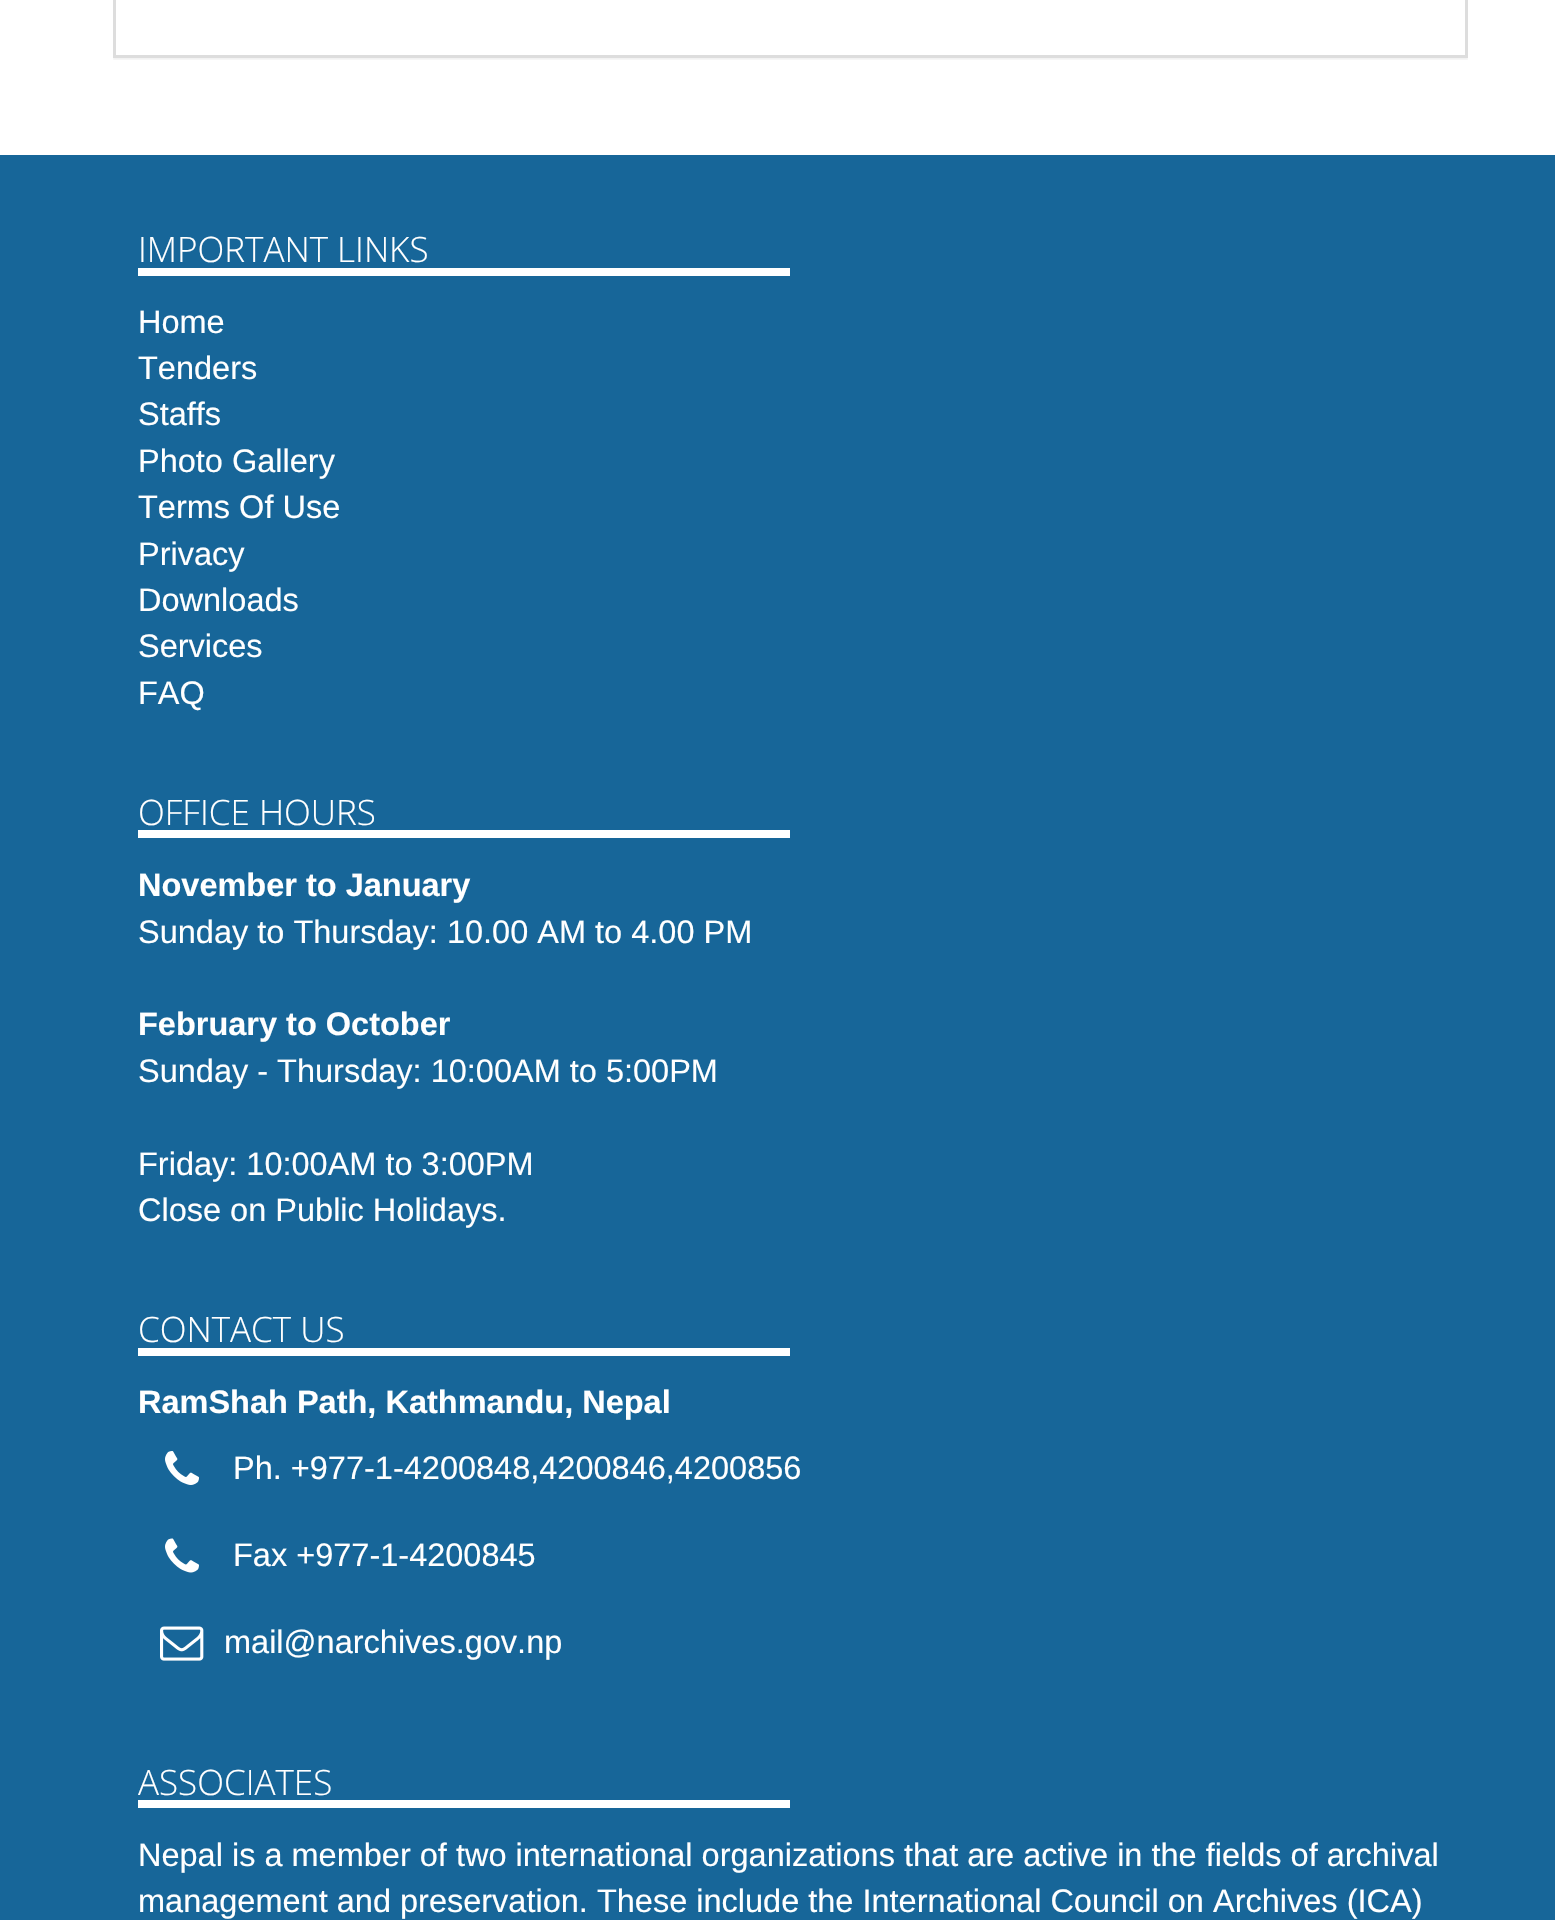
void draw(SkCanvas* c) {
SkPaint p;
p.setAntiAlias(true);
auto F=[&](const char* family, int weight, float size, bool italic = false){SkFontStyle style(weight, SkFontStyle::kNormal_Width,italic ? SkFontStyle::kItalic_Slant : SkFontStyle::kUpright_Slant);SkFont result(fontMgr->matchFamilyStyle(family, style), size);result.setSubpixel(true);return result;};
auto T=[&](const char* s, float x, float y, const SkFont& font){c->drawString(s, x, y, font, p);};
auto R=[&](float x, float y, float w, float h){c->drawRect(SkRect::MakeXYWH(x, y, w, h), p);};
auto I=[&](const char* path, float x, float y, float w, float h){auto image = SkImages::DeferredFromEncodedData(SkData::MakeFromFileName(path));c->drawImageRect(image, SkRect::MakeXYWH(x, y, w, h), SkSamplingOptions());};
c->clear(0xffffffff);
c->save();
c->clipRect(SkRect::MakeXYWH(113,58,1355,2));
p.setColor(0x0d000000);
p.setMaskFilter(SkMaskFilter::MakeBlur(kNormal_SkBlurStyle, 1));
c->drawRect(SkRect::MakeXYWH(113,-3,1355,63),p);
p.setMaskFilter(nullptr);
c->restore();
p.setStroke(true);
p.setStrokeWidth(3);
p.setColor(0xffdddddd);
c->drawRect(SkRect::MakeXYWH(114.5,-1.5,1352,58),p);
p.setStroke(false);
p.setColor(0xff176699);
R(0,155,1555,1765);
auto f1 = F("Open Sans",300,35);
p.setColor(0xffffffff);
T("IMPORTANT LINKS",138,262,f1);
R(138,268,652,8);
auto f2 = F("Liberation Sans",400,32.5);
T("Home",138,333,f2);
T("Tenders",138,379,f2);
T("Staffs",138,425,f2);
T("Photo Gallery",138,472,f2);
T("Terms Of Use",138,518,f2);
T("Privacy",138,565,f2);
T("Downloads",138,611,f2);
T("Services",138,657,f2);
T("FAQ",138,704,f2);
T("OFFICE HOURS",138,825,f1);
R(138,830,652,8);
auto f3 = F("Liberation Sans",700,32.5);
T("November to January",138,896,f3);
T("Sunday to Thursday: 10.00 AM to 4.00 PM",138,943,f2);
T("February to October",138,1035,f3);
T("Sunday - Thursday: 10:00AM to 5:00PM",138,1082,f2);
T("Friday: 10:00AM to 3:00PM",138,1175,f2);
T("Close on Public Holidays.",138,1221,f2);
T("CONTACT US",138,1342,f1);
R(138,1348,652,8);
T("RamShah Path, Kathmandu, Nepal",138,1413,f3);
I("1.png",165,1451,34,34);
T("Ph. +977-1-4200848,4200846,4200856",233,1479,f2);
I("2.png",165,1538,34,35);
T("Fax +977-1-4200845",233,1566,f2);
I("3.png",160,1626,44,35);
T("mail@narchives.gov.np",224,1653,f2);
T("ASSOCIATES",138,1795,f1);
R(138,1800,652,8);
T("Nepal is a member of two international organizations that are active in the fields of archival",138,1866,f2);
T("management and preservation. These include the International Council on Archives (ICA)",138,1912,f2);
}
